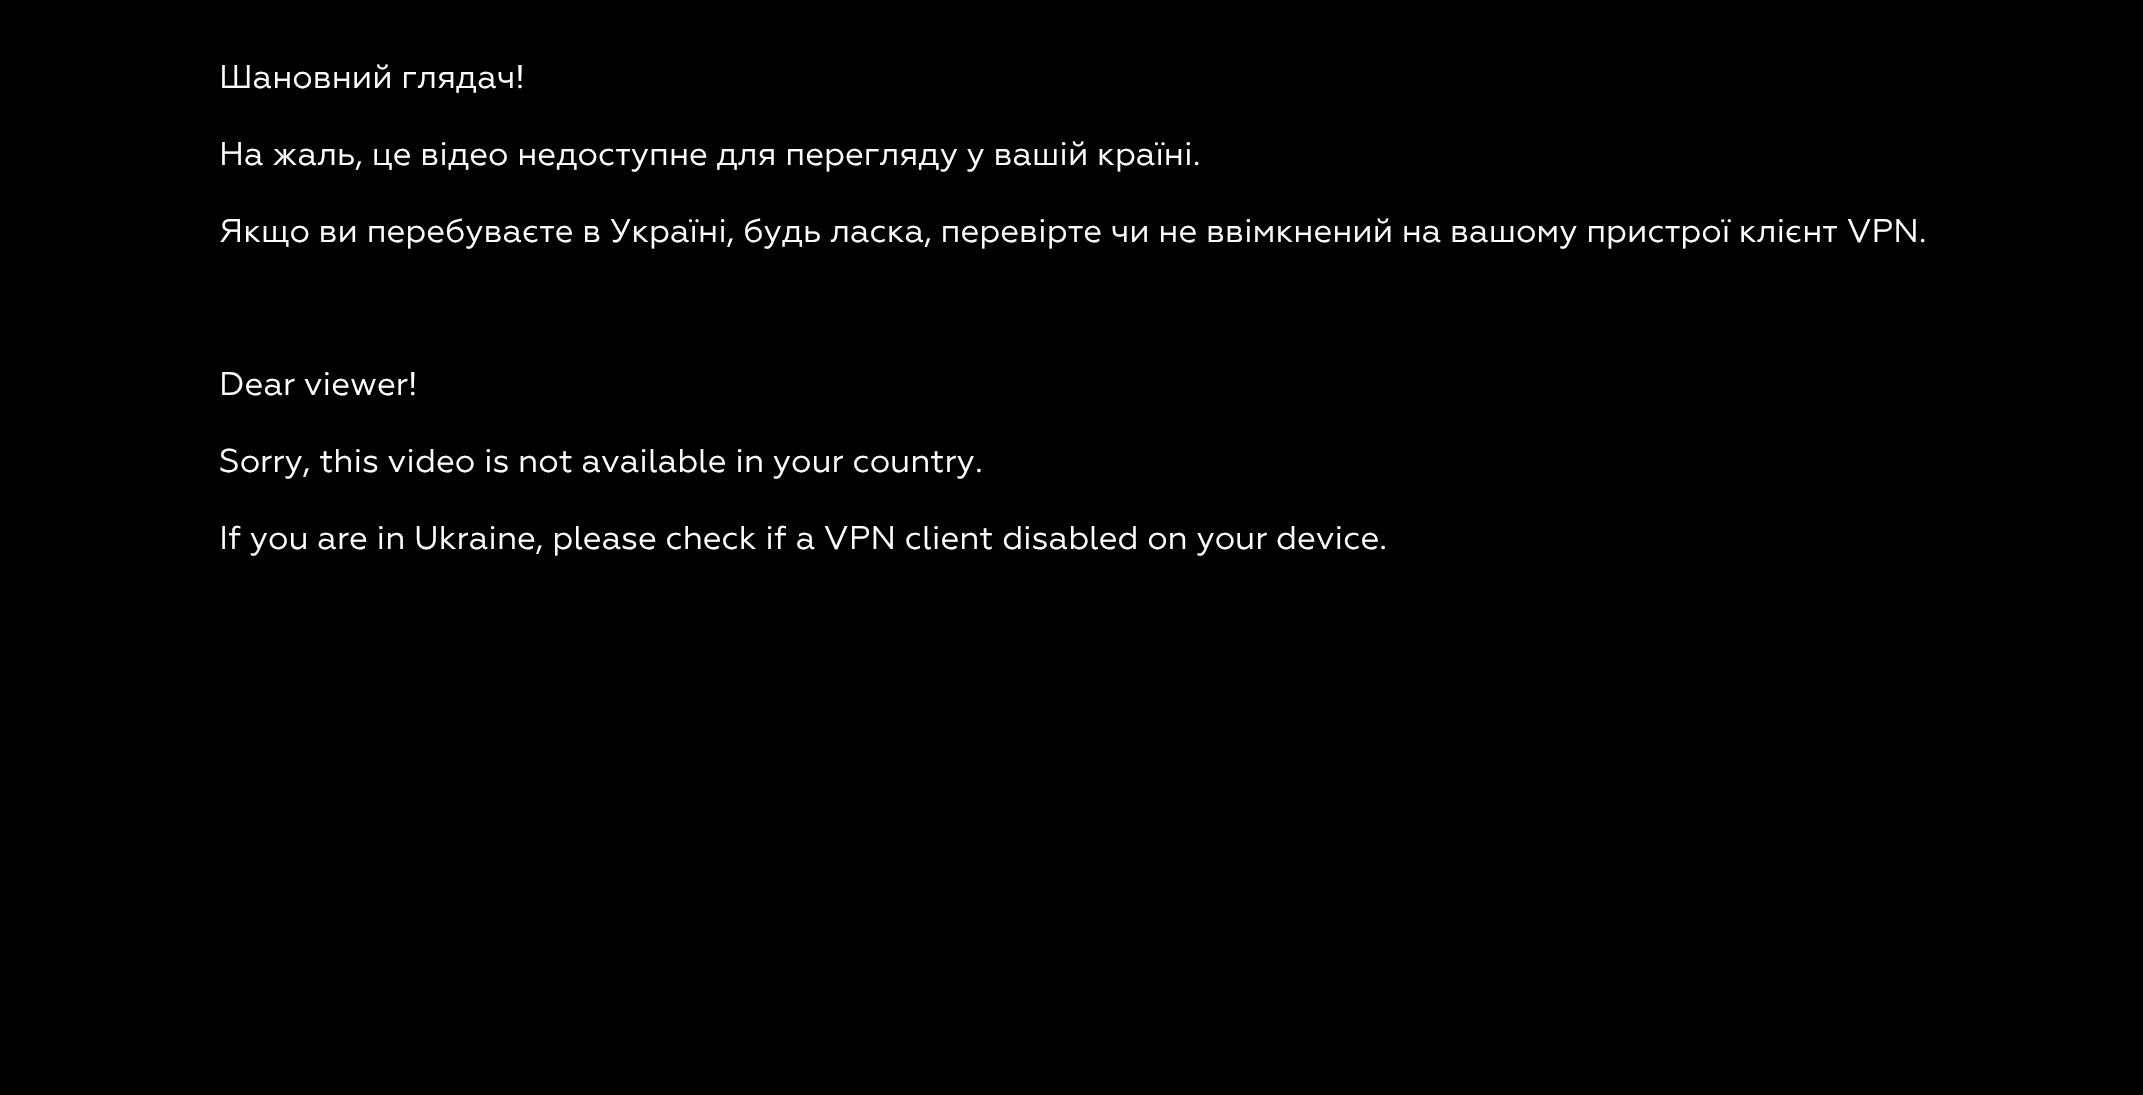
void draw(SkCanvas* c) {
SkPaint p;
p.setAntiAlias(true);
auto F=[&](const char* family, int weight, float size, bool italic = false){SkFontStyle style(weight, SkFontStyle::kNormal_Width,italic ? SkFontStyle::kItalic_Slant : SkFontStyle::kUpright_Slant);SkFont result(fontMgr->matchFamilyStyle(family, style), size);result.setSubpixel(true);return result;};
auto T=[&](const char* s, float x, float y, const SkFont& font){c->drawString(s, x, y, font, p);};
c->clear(0xff000000);
auto f1 = F("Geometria",400,32.92);
p.setColor(0xffffffff);
T("Шановний глядач!",219,88,f1);
T("На жаль, це відео недоступне для перегляду у вашій країні.",219,165,f1);
T("Якщо ви перебуваєте в Україні, будь ласка, перевірте чи не ввімкнений на вашому пристрої клієнт VPN.",219,242,f1);
T("Dear viewer!",219,395,f1);
T("Sorry, this video is not available in your country.",219,472,f1);
T("If you are in Ukraine, please check if a VPN client disabled on your device.",219,549,f1);
}
